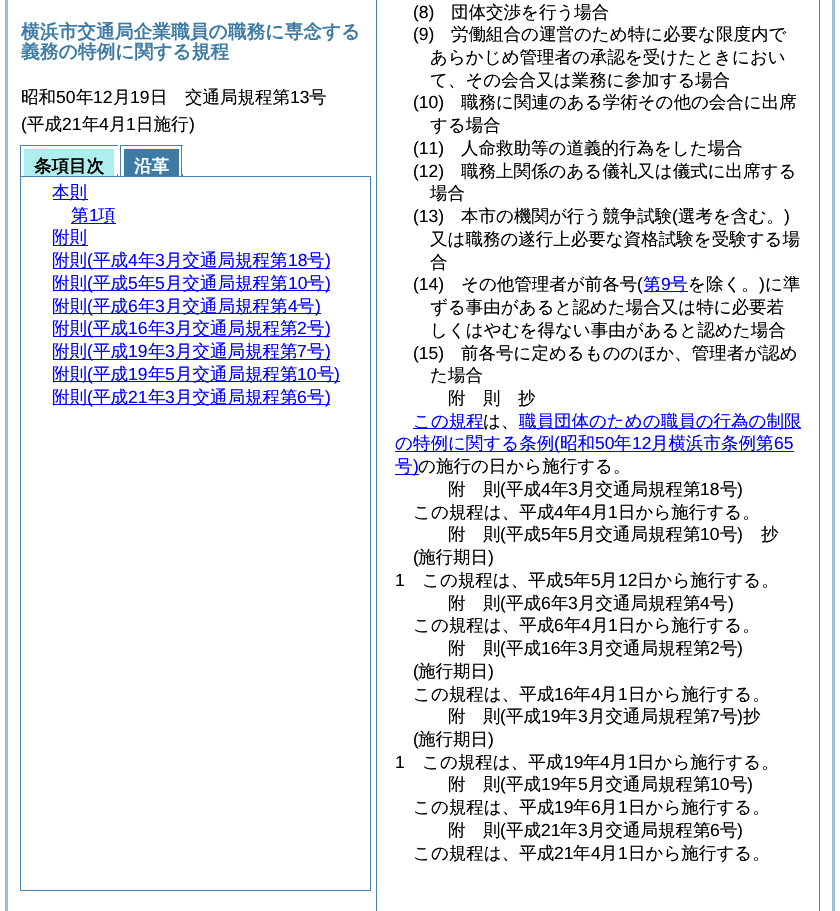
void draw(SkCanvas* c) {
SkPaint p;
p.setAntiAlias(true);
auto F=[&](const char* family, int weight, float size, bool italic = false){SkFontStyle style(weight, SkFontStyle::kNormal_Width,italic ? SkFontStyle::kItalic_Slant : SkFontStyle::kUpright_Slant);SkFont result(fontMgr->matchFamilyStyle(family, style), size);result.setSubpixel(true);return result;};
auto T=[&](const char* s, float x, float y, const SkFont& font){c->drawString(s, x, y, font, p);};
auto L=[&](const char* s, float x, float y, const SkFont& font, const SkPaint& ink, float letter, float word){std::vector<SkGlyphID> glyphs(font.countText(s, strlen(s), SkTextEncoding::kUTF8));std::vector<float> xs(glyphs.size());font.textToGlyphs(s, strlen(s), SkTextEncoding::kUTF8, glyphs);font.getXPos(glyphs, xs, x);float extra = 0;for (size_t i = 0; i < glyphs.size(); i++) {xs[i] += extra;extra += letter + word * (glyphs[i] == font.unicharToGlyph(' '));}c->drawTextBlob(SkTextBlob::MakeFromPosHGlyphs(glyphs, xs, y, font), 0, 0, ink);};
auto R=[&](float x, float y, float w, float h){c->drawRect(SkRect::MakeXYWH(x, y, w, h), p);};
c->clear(0xffffffff);
p.setStroke(true);
p.setStrokeWidth(3);
p.setColor(0xffa0bfcc);
c->drawRect(SkRect::MakeXYWH(6.5,-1.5,827,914),p);
auto f1 = F("WenQuanYi Zen Hei",700,18.75);
p.setStroke(false);
p.setColor(0xff3d7aa4);
T("横浜市交通局企業職員の職務に専念する",21,38,f1);
T("義務の特例に関する規程",21,58,f1);
auto f2 = F("WenQuanYi Zen Hei",500,17.5);
p.setColor(0xff000000);
T("昭和",21,103,f2);
auto f3 = F("Liberation Sans",400,17.5);
T("50",56,103,f3);
T("年",76,103,f2);
T("12",93,103,f3);
T("月",113,103,f2);
T("19",130,103,f3);
T("日　交通局規程第",150,103,f2);
T("13",290,103,f3);
T("号",309,103,f2);
T("(",21,130,f3);
T("平成",27,130,f2);
T("21",62,130,f3);
T("年",82,130,f2);
T("4",99,130,f3);
T("月",109,130,f2);
T("1",126,130,f3);
T("日施行",136,130,f2);
T(")",189,130,f3);
p.setColor(0xff4682b4);
R(20,145,98,1);
R(117,174,1,2);
R(20,145,1,33);
p.setColor(0xffafeeee);
R(24,149,90,27);
auto f4 = F("WenQuanYi Zen Hei",700,17.5);
p.setColor(0xff000000);
T("条項目次",34,172,f4);
p.setColor(0xff4682b4);
R(120,145,63,1);
R(181,145,1,33);
R(181,174,2,2);
R(120,145,1,33);
p.setColor(0xff3d7aa4);
R(124,149,55,27);
p.setColor(0xffffffff);
T("沿革",134,172,f4);
R(120,177,62,1);
p.setStroke(true);
p.setStrokeWidth(1);
p.setColor(0xff4682b4);
c->drawRect(SkRect::MakeXYWH(20.5,176.5,350,714),p);
p.setStroke(false);
p.setColor(0xff0000ff);
R(53,199,35,1);
T("本則",52,198,f2);
R(71,223,45,1);
T("第",71,221,f2);
T("1",89,221,f3);
T("項",98,221,f2);
R(53,245,35,1);
T("附則",52,243,f2);
R(53,268,277,1);
T("附則",52,266,f2);
T("(",87,266,f3);
T("平成",93,266,f2);
T("4",128,266,f3);
T("年",138,266,f2);
T("3",155,266,f3);
T("月交通局規程第",165,266,f2);
T("18",288,266,f3);
T("号",307,266,f2);
T(")",325,266,f3);
R(53,290,277,1);
T("附則",52,289,f2);
T("(",87,289,f3);
T("平成",93,289,f2);
T("5",128,289,f3);
T("年",138,289,f2);
T("5",155,289,f3);
T("月交通局規程第",165,289,f2);
T("10",288,289,f3);
T("号",307,289,f2);
T(")",325,289,f3);
R(53,313,268,1);
T("附則",52,312,f2);
T("(",87,312,f3);
T("平成",93,312,f2);
T("6",128,312,f3);
T("年",138,312,f2);
T("3",155,312,f3);
T("月交通局規程第",165,312,f2);
T("4",288,312,f3);
T("号",297,312,f2);
T(")",315,312,f3);
R(53,336,277,1);
T("附則",52,334,f2);
T("(",87,334,f3);
T("平成",93,334,f2);
T("16",128,334,f3);
T("年",148,334,f2);
T("3",165,334,f3);
T("月交通局規程第",175,334,f2);
T("2",297,334,f3);
T("号",307,334,f2);
T(")",325,334,f3);
R(53,359,277,1);
T("附則",52,357,f2);
T("(",87,357,f3);
T("平成",93,357,f2);
T("19",128,357,f3);
T("年",148,357,f2);
T("3",165,357,f3);
T("月交通局規程第",175,357,f2);
T("7",297,357,f3);
T("号",307,357,f2);
T(")",325,357,f3);
R(53,381,287,1);
T("附則",52,380,f2);
T("(",87,380,f3);
T("平成",93,380,f2);
T("19",128,380,f3);
T("年",148,380,f2);
T("5",165,380,f3);
T("月交通局規程第",175,380,f2);
T("10",297,380,f3);
T("号",317,380,f2);
T(")",334,380,f3);
R(53,404,277,1);
T("附則",52,403,f2);
T("(",87,403,f3);
T("平成",93,403,f2);
T("21",128,403,f3);
T("年",148,403,f2);
T("3",165,403,f3);
T("月交通局規程第",175,403,f2);
T("6",297,403,f3);
T("号",307,403,f2);
T(")",325,403,f3);
p.setStroke(true);
p.setColor(0xff4682b4);
c->drawRect(SkRect::MakeXYWH(376.5,-.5,443,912),p);
p.setStroke(false);
p.setColor(0xff000000);
T("(8)",413,18,f3);
T("団体交渉を行う場合",451,18,f2);
T("(9)",413,40,f3);
T("労働組合の運営のため特に必要な限度内で",451,40,f2);
T("あらかじめ管理者の承認を受けたときにおい",430,63,f2);
T("て、その会合又は業務に参加する場合",430,86,f2);
T("(10)",413,108,f3);
T("職務に関連のある学術その他の会合に出席",461,108,f2);
T("する場合",430,131,f2);
T("(11)",413,154,f3);
T("人命救助等の道義的行為をした場合",461,154,f2);
T("(12)",413,177,f3);
T("職務上関係のある儀礼又は儀式に出席する",461,177,f2);
T("場合",430,199,f2);
T("(13)",413,222,f3);
T("本市の機関が行う競争試験",461,222,f2);
T("(",672,222,f3);
T("選考を含む。",678,222,f2);
T(")",784,222,f3);
T("又は職務の遂行上必要な資格試験を受験する場",430,245,f2);
T("合",430,268,f2);
T("(14)",413,290,f3);
T("その他管理者が前各号",461,290,f2);
T("(",637,290,f3);
p.setColor(0xff0000ff);
R(644,291,44,1);
T("第",643,290,f2);
T("9",661,290,f3);
T("号",670,290,f2);
p.setColor(0xff000000);
T("を除く。",688,290,f2);
T(")",759,290,f3);
T("に準",765,290,f2);
T("ずる事由があると認めた場合又は特に必要若",430,313,f2);
T("しくはやむを得ない事由があると認めた場合",430,336,f2);
T("(15)",413,359,f3);
T("前各号に定めるもののほか、管理者が認め",461,359,f2);
T("た場合",430,381,f2);
L("附",448,404,f2,p,18,0);
T("則",483,404,f2);
T("抄",518,404,f2);
p.setColor(0xff0000ff);
R(413,428,71,1);
T("この規程",413,427,f2);
p.setColor(0xff000000);
T("は、",483,427,f2);
p.setColor(0xff0000ff);
R(519,428,282,1);
T("職員団体のための職員の行為の制限",519,427,f2);
R(395,451,399,1);
T("の特例に関する条例",395,449,f2);
T("(",554,449,f3);
T("昭和",560,449,f2);
T("50",595,449,f3);
T("年",614,449,f2);
T("12",632,449,f3);
T("月横浜市条例第",651,449,f2);
T("65",774,449,f3);
R(395,474,24,1);
T("号",395,472,f2);
T(")",413,472,f3);
p.setColor(0xff000000);
T("の施行の日から施行する。",418,472,f2);
L("附",448,495,f2,p,18,0);
T("則",483,495,f2);
T("(",500,495,f3);
T("平成",506,495,f2);
T("4",541,495,f3);
T("年",551,495,f2);
T("3",568,495,f3);
T("月交通局規程第",578,495,f2);
T("18",700,495,f3);
T("号",720,495,f2);
T(")",737,495,f3);
T("この規程は、平成",413,518,f2);
T("4",554,518,f3);
T("年",564,518,f2);
T("4",581,518,f3);
T("月",591,518,f2);
T("1",608,518,f3);
T("日から施行する。",618,518,f2);
L("附",448,540,f2,p,18,0);
T("則",483,540,f2);
T("(",500,540,f3);
T("平成",506,540,f2);
T("5",541,540,f3);
T("年",551,540,f2);
T("5",568,540,f3);
T("月交通局規程第",578,540,f2);
T("10",700,540,f3);
T("号",720,540,f2);
T(")",737,540,f3);
T("抄",761,540,f2);
T("(",413,563,f3);
T("施行期日",418,563,f2);
T(")",488,563,f3);
T("1",395,586,f3);
T("この規程は、平成",422,586,f2);
T("5",564,586,f3);
T("年",573,586,f2);
T("5",591,586,f3);
T("月",600,586,f2);
T("12",618,586,f3);
T("日から施行する。",637,586,f2);
L("附",448,609,f2,p,18,0);
T("則",483,609,f2);
T("(",500,609,f3);
T("平成",506,609,f2);
T("6",541,609,f3);
T("年",551,609,f2);
T("3",568,609,f3);
T("月交通局規程第",578,609,f2);
T("4",700,609,f3);
T("号",710,609,f2);
T(")",728,609,f3);
T("この規程は、平成",413,631,f2);
T("6",554,631,f3);
T("年",564,631,f2);
T("4",581,631,f3);
T("月",591,631,f2);
T("1",608,631,f3);
T("日から施行する。",618,631,f2);
L("附",448,654,f2,p,18,0);
T("則",483,654,f2);
T("(",500,654,f3);
T("平成",506,654,f2);
T("16",541,654,f3);
T("年",560,654,f2);
T("3",578,654,f3);
T("月交通局規程第",588,654,f2);
T("2",710,654,f3);
T("号",720,654,f2);
T(")",737,654,f3);
T("(",413,677,f3);
T("施行期日",418,677,f2);
T(")",488,677,f3);
T("この規程は、平成",413,700,f2);
T("16",554,700,f3);
T("年",573,700,f2);
T("4",591,700,f3);
T("月",600,700,f2);
T("1",618,700,f3);
T("日から施行する。",628,700,f2);
L("附",448,722,f2,p,18,0);
T("則",483,722,f2);
T("(",500,722,f3);
T("平成",506,722,f2);
T("19",541,722,f3);
T("年",560,722,f2);
T("3",578,722,f3);
T("月交通局規程第",588,722,f2);
T("7",710,722,f3);
T("号",720,722,f2);
T(")",737,722,f3);
T("抄",743,722,f2);
T("(",413,745,f3);
T("施行期日",418,745,f2);
T(")",488,745,f3);
T("1",395,768,f3);
T("この規程は、平成",422,768,f2);
T("19",564,768,f3);
T("年",583,768,f2);
T("4",600,768,f3);
T("月",610,768,f2);
T("1",628,768,f3);
T("日から施行する。",637,768,f2);
L("附",448,790,f2,p,18,0);
T("則",483,790,f2);
T("(",500,790,f3);
T("平成",506,790,f2);
T("19",541,790,f3);
T("年",560,790,f2);
T("5",578,790,f3);
T("月交通局規程第",588,790,f2);
T("10",710,790,f3);
T("号",730,790,f2);
T(")",747,790,f3);
T("この規程は、平成",413,813,f2);
T("19",554,813,f3);
T("年",573,813,f2);
T("6",591,813,f3);
T("月",600,813,f2);
T("1",618,813,f3);
T("日から施行する。",628,813,f2);
L("附",448,836,f2,p,18,0);
T("則",483,836,f2);
T("(",500,836,f3);
T("平成",506,836,f2);
T("21",541,836,f3);
T("年",560,836,f2);
T("3",578,836,f3);
T("月交通局規程第",588,836,f2);
T("6",710,836,f3);
T("号",720,836,f2);
T(")",737,836,f3);
T("この規程は、平成",413,859,f2);
T("21",554,859,f3);
T("年",573,859,f2);
T("4",591,859,f3);
T("月",600,859,f2);
T("1",618,859,f3);
T("日から施行する。",628,859,f2);
}
